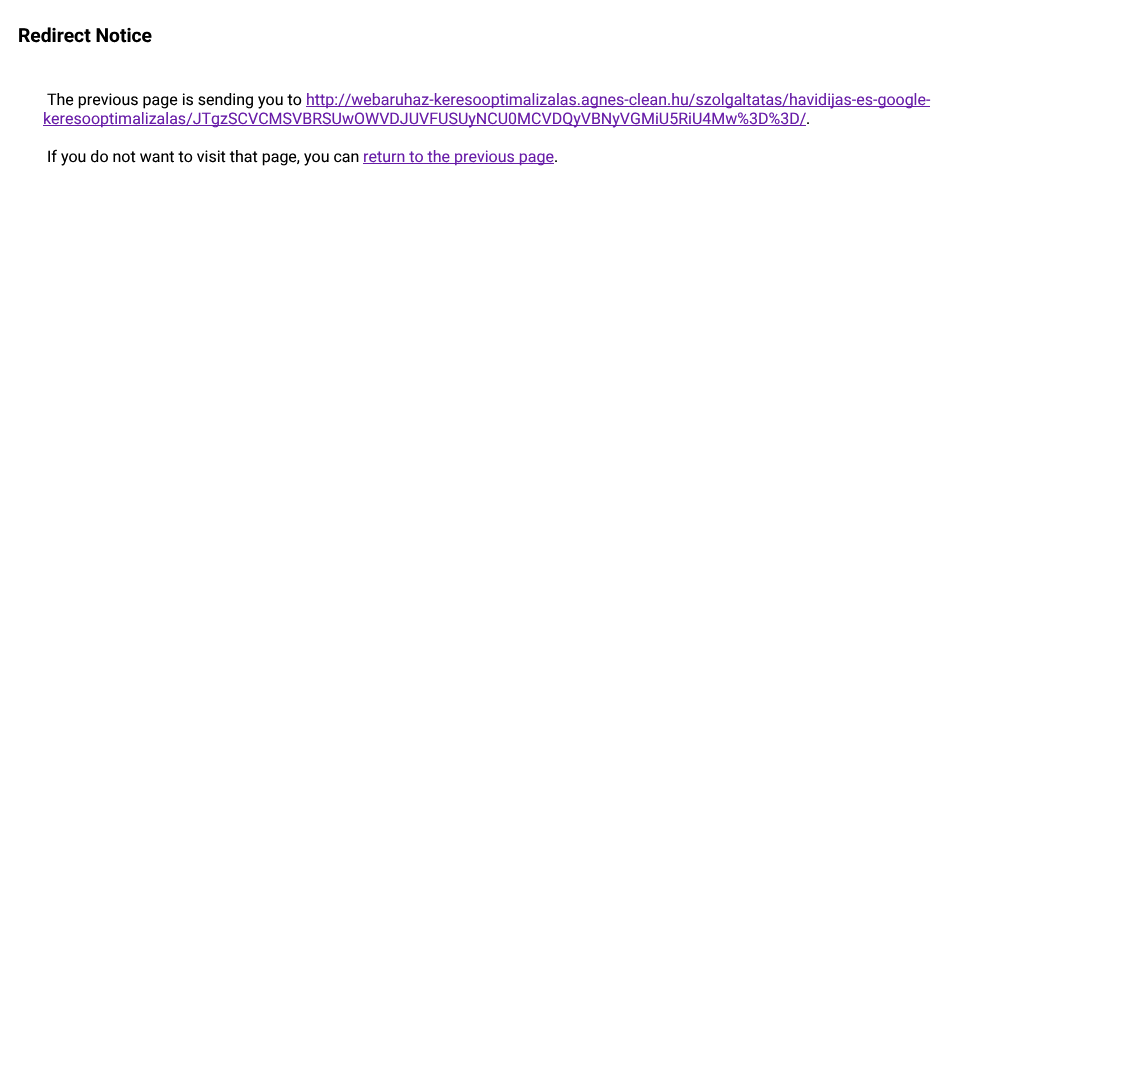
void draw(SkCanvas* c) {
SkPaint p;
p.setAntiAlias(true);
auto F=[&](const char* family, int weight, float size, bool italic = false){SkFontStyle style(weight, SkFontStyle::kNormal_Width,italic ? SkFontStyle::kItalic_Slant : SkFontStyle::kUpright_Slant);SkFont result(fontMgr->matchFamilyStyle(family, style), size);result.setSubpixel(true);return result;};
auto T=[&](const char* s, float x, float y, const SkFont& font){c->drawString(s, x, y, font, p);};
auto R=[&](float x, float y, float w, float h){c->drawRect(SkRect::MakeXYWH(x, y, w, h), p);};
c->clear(0xffffffff);
auto f1 = F("Roboto",700,19.25);
p.setColor(0xff000000);
T("Redirect Notice",18,42,f1);
auto f2 = F("Roboto",400,16);
T("The previous page is sending you to",47,105,f2);
p.setColor(0xff681da8);
R(306,106,624,1);
T("http://webaruhaz-keresooptimalizalas.agnes-clean.hu/szolgaltatas/havidijas-es-google-",306,105,f2);
R(43,125,763,1);
T("keresooptimalizalas/JTgzSCVCMSVBRSUwOWVDJUVFUSUyNCU0MCVDQyVBNyVGMiU5RiU4Mw%3D%3D/",43,124,f2);
p.setColor(0xff000000);
T(".",806,124,f2);
T("If you do not want to visit that page, you can",47,162,f2);
p.setColor(0xff681da8);
R(363,163,191,1);
T("return to the previous page",363,162,f2);
p.setColor(0xff000000);
T(".",554,162,f2);
}
